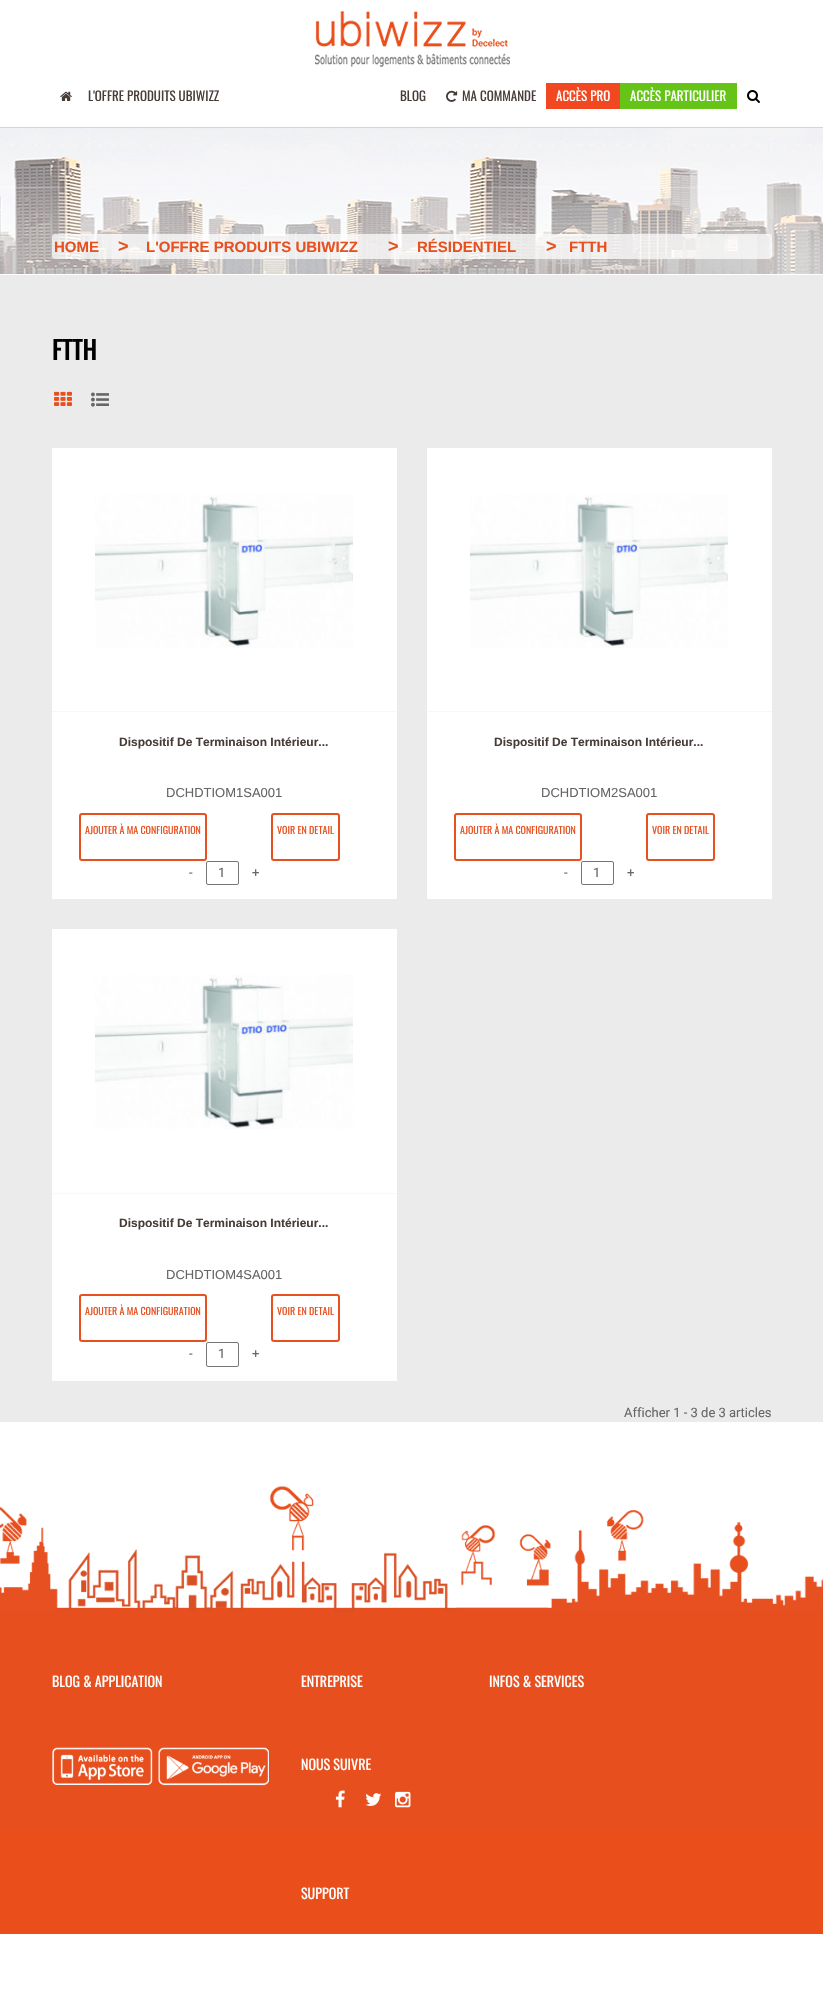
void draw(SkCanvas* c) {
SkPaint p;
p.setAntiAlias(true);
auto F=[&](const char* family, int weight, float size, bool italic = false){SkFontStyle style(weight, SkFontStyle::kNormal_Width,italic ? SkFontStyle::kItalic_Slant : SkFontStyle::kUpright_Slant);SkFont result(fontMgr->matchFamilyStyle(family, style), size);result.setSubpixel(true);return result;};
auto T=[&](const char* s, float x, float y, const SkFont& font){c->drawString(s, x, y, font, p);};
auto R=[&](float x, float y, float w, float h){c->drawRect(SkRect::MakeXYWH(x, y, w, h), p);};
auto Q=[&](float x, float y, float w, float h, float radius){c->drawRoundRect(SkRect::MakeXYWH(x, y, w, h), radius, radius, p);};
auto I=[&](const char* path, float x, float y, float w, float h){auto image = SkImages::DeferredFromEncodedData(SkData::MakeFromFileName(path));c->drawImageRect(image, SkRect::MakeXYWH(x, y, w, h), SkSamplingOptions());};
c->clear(0xffffffff);
I("1.png",315,11,195,56);
I("2.png",60,91,12,10);
auto f1 = F("Oswald",400,13);
p.setColor(0xff473c38);
T("L'OFFRE PRODUITS UBIWIZZ",88,101,f1);
T("BLOG",400,101,f1);
I("3.png",446,90,12,12);
T("MA COMMANDE",462,101,f1);
p.setColor(0xfff24821);
R(546,83,74,26);
p.setColor(0xffffffff);
T("ACCÈS PRO",556,101,f1);
p.setColor(0xff66c317);
R(620,83,117,26);
p.setColor(0xffffffff);
T("ACCÈS PARTICULIER",630,101,f1);
I("4.png",747,90,13,13);
p.setColor(0xffdad3d3);
R(0,127,823,1);
I("5.png",0,128,823,146);
p.setColor(0xb8ffffff);
Q(52,234,720,25,3);
auto f2 = F("Arimo",700,15);
p.setColor(0xffe7501f);
T("HOME",54,252,f2);
auto f3 = F("Arimo",700,18);
T(">",118,252,f3);
T("L'OFFRE PRODUITS UBIWIZZ",146,252,f2);
T(">",388,252,f3);
T("RÉSIDENTIEL",417,252,f2);
T(">",546,252,f3);
T("FTTH",569,252,f2);
p.setColor(0xffebebeb);
R(0,275,823,1147);
auto f4 = F("Oswald",700,25);
p.setColor(0xff000000);
T("FTTH",52,360,f4);
I("6.png",54,391,18,15);
I("7.png",91,392,18,15);
p.setColor(0xffffffff);
R(52,448,345,451);
I("8.png",95,494,258,154);
p.setColor(0xfff8f8f8);
R(52,711,345,1);
auto f5 = F("Arimo",700,12);
p.setColor(0xff473c38);
T("Dispositif De Terminaison Intérieur...",119,746,f5);
auto f6 = F("Arimo",400,13);
p.setColor(0xff666666);
T("DCHDTIOM1SA001",166,797,f6);
p.setStroke(true);
p.setStrokeWidth(2);
p.setColor(0xffe7501f);
c->drawRoundRect(SkRect::MakeXYWH(80,814,126,46),2,2,p);
auto f7 = F("Oswald",400,10);
p.setStroke(false);
T("AJOUTER À MA CONFIGURATION",85,834,f7);
p.setStroke(true);
c->drawRoundRect(SkRect::MakeXYWH(272,814,67,46),2,2,p);
p.setStroke(false);
T("VOIR EN DETAIL",277,834,f7);
auto f8 = F("Roboto",400,13);
p.setColor(0xff666666);
T("-",189,877,f8);
p.setStroke(true);
p.setStrokeWidth(1);
p.setColor(0xff767676);
c->drawRoundRect(SkRect::MakeXYWH(206.5,861.5,32,23),1.5,1.5,p);
p.setStroke(false);
p.setColor(0xff666666);
T("1",218,877,f8);
T("+",252,877,f8);
p.setColor(0xffffffff);
R(427,448,345,451);
I("9.png",470,494,258,154);
p.setColor(0xfff8f8f8);
R(427,711,345,1);
p.setColor(0xff473c38);
T("Dispositif De Terminaison Intérieur...",494,746,f5);
p.setColor(0xff666666);
T("DCHDTIOM2SA001",541,797,f6);
p.setStroke(true);
p.setStrokeWidth(2);
p.setColor(0xffe7501f);
c->drawRoundRect(SkRect::MakeXYWH(455,814,126,46),2,2,p);
p.setStroke(false);
T("AJOUTER À MA CONFIGURATION",460,834,f7);
p.setStroke(true);
c->drawRoundRect(SkRect::MakeXYWH(647,814,67,46),2,2,p);
p.setStroke(false);
T("VOIR EN DETAIL",652,834,f7);
p.setColor(0xff666666);
T("-",564,877,f8);
p.setStroke(true);
p.setStrokeWidth(1);
p.setColor(0xff767676);
c->drawRoundRect(SkRect::MakeXYWH(581.5,861.5,32,23),1.5,1.5,p);
p.setStroke(false);
p.setColor(0xff666666);
T("1",593,877,f8);
T("+",627,877,f8);
p.setColor(0xffffffff);
R(52,929,345,452);
I("10.png",95,975,258,154);
p.setColor(0xfff8f8f8);
R(52,1193,345,1);
p.setColor(0xff473c38);
T("Dispositif De Terminaison Intérieur...",119,1227,f5);
p.setColor(0xff666666);
T("DCHDTIOM4SA001",166,1279,f6);
p.setStroke(true);
p.setStrokeWidth(2);
p.setColor(0xffe7501f);
c->drawRoundRect(SkRect::MakeXYWH(80,1295,126,46),2,2,p);
p.setStroke(false);
T("AJOUTER À MA CONFIGURATION",85,1315,f7);
p.setStroke(true);
c->drawRoundRect(SkRect::MakeXYWH(272,1295,67,46),2,2,p);
p.setStroke(false);
T("VOIR EN DETAIL",277,1315,f7);
p.setColor(0xff666666);
T("-",189,1358,f8);
p.setStroke(true);
p.setStrokeWidth(1);
p.setColor(0xff767676);
c->drawRoundRect(SkRect::MakeXYWH(206.5,1342.5,32,24),1.5,1.5,p);
p.setStroke(false);
p.setColor(0xff666666);
T("1",218,1358,f8);
T("+",252,1358,f8);
T("Afficher 1 - 3 de 3 articles",624,1417,f8);
I("11.png",0,1486,823,448);
auto f9 = F("Oswald",400,14);
p.setColor(0xffffffff);
T("BLOG & APPLICATION",52,1687,f9);
I("12.png",52,1747,101,38);
I("13.png",158,1747,111,39);
T("ENTREPRISE",301,1687,f9);
T("INFOS & SERVICES",489,1687,f9);
T("NOUS SUIVRE",301,1770,f9);
I("14.png",335,1790,10,18);
I("15.png",365,1793,17,13);
I("16.png",395,1791,16,17);
T("SUPPORT",301,1899,f9);
}
